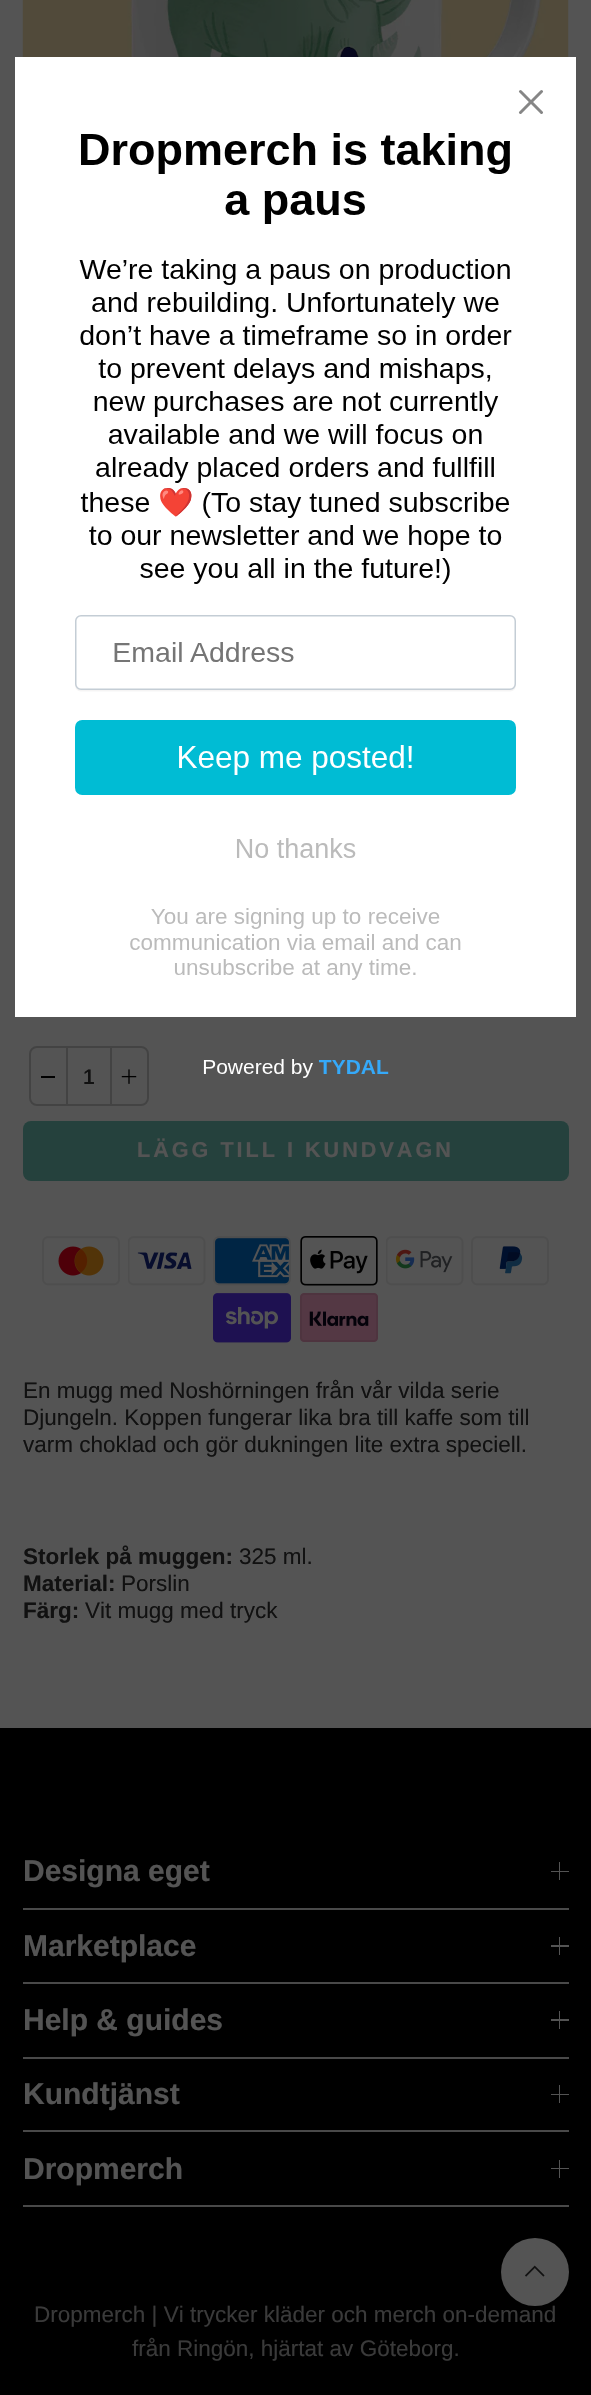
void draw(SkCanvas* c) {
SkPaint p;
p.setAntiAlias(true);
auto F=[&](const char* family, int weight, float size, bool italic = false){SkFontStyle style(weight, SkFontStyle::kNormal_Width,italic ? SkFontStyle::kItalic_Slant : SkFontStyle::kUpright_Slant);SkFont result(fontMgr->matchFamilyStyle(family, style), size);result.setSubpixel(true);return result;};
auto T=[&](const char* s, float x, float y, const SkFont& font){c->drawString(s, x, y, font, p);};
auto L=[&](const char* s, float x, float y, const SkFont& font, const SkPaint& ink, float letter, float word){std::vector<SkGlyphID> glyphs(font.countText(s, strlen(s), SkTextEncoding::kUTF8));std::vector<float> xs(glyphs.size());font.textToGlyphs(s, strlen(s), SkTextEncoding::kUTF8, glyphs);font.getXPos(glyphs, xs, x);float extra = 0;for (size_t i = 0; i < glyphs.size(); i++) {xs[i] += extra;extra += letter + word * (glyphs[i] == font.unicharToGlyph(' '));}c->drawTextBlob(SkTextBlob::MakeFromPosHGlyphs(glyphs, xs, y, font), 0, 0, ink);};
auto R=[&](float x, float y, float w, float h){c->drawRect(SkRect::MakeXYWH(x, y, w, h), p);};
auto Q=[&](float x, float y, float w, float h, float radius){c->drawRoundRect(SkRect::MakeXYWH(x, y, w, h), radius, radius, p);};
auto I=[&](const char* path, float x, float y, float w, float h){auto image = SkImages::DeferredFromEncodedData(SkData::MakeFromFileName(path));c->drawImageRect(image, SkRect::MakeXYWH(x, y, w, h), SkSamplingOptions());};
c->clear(0xff000000);
p.setColor(0xffffffff);
R(0,0,591,1728);
I("2.png",22,0,547,57);
p.setStroke(true);
p.setStrokeWidth(2);
p.setColor(0xffcccccc);
c->drawRoundRect(SkRect::MakeXYWH(30,1047,118,58),7,7,p);
p.setStroke(false);
R(66,1047,2,57);
p.setColor(0xff000000);
R(41,1076,14,2);
p.setColor(0xffcccccc);
R(110,1047,2,57);
I("3.png",121,1069,16,15);
auto f1 = F("Arimo",600,21);
p.setColor(0xff333333);
T("1",83,1084,f1);
p.setColor(0xff70c5b7);
Q(23,1121,546,60,8);
auto f2 = F("Arimo",700,21.6);
p.setColor(0xffffffff);
L("LÄGG TILL I KUNDVAGN",137,1157,f2,p,3,0);
I("4.png",42,1236,78,50);
I("5.png",128,1236,78,50);
I("6.png",213,1236,78,50);
I("7.png",300,1236,78,50);
I("8.png",386,1236,78,50);
I("9.png",471,1236,78,50);
I("10.png",213,1293,78,50);
I("11.png",300,1293,78,49);
auto f3 = F("Arimo",400,22.5);
p.setColor(0xff333333);
T("En mugg med Noshörningen från vår vilda serie",23,1398,f3);
T("Djungeln. Koppen fungerar lika bra till kaffe som till",23,1425,f3);
T("varm choklad och gör dukningen lite extra speciell.",23,1452,f3);
auto f4 = F("Arimo",700,22.5);
T("Storlek på muggen:",23,1564,f4);
T("325 ml.",239,1564,f3);
T("Material:",23,1591,f4);
T("Porslin",121,1591,f3);
T("Färg:",23,1618,f4);
T("Vit mugg med tryck",85,1618,f3);
p.setColor(0xffdddddd);
R(23,1908,546,2);
auto f5 = F("Arimo",700,30);
p.setColor(0xffffffff);
T("Designa eget",23,1881,f5);
R(559,1862,1,18);
R(551,1871,18,1);
p.setColor(0xffdddddd);
R(23,1982,546,2);
p.setColor(0xffffffff);
T("Marketplace",23,1956,f5);
R(559,1937,1,18);
R(551,1945,18,2);
p.setColor(0xffdddddd);
R(23,2057,546,2);
p.setColor(0xffffffff);
T("Help & guides",23,2030,f5);
R(559,2011,1,18);
R(551,2019,18,2);
p.setColor(0xffdddddd);
R(23,2130,546,2);
p.setColor(0xffffffff);
T("Kundtjänst",23,2104,f5);
R(559,2085,1,18);
R(551,2094,18,1);
p.setColor(0xffdddddd);
R(23,2205,546,2);
p.setColor(0xffffffff);
T("Dropmerch",23,2179,f5);
R(559,2160,1,18);
R(551,2168,18,1);
p.setColor(0xffafafaf);
T("Dropmerch | Vi trycker kläder och merch on-demand",34,2322,f3);
T("från Ringön, hjärtat av Göteborg.",132,2356,f3);
p.setColor(0xffffffff);
c->drawCircle(535,2272,34,p);
I("12.png",525,2265,20,12);
I("1.png",0,0,591,2361);
}
